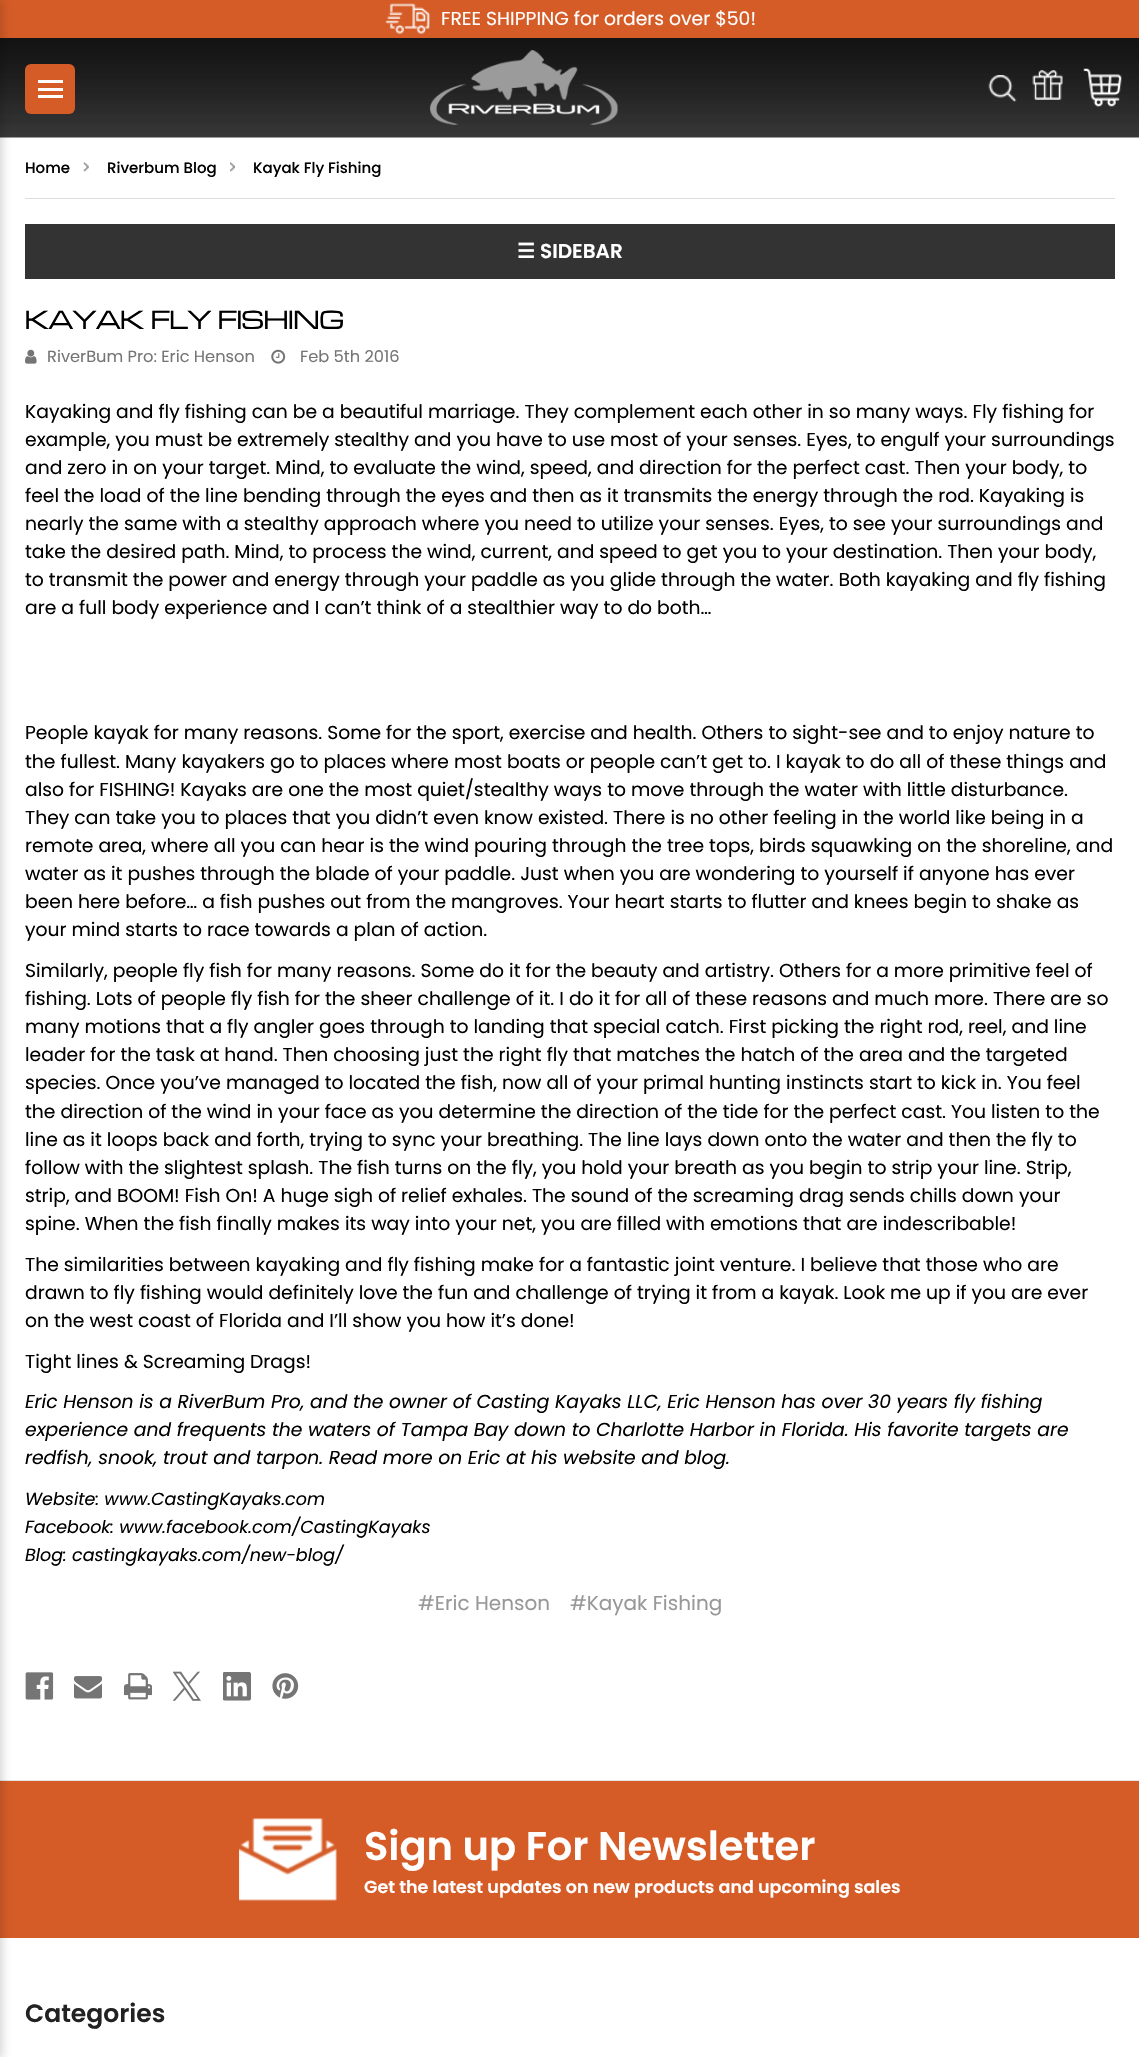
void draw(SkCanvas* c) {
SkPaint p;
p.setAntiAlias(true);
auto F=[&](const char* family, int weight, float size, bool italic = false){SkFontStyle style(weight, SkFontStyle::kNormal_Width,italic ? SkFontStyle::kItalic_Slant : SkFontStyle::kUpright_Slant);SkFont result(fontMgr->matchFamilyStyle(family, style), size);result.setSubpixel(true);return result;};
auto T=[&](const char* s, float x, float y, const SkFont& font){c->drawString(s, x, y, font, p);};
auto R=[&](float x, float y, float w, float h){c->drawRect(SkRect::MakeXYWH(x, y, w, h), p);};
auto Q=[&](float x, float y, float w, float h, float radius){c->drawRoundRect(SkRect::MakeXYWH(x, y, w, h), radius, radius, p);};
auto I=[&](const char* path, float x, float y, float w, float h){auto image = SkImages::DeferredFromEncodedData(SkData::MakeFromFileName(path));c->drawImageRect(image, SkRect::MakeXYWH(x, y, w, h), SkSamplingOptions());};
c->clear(0xffffffff);
I("1.png",0,38,1139,100);
p.setColor(0xffd55c27);
R(0,0,1139,38);
p.setColor(0xffe5e5e5);
R(0,1780,1139,1);
p.setColor(0xffd55c27);
R(0,1781,1139,157);
p.setColor(0x26000000);
p.setMaskFilter(SkMaskFilter::MakeBlur(kNormal_SkBlurStyle, 4));
c->drawRect(SkRect::MakeXYWH(-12,0,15,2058),p);
p.setMaskFilter(nullptr);
I("2.png",385,3,45,31);
auto f1 = F("Poppins",400,18.75);
p.setColor(0xffffffff);
T("FREE SHIPPING for orders over $50!",441,25,f1);
p.setColor(0xffd55c27);
Q(25,64,50,50,6);
p.setColor(0xffffffff);
R(38,88,25,3);
R(38,80,25,3);
R(38,95,25,3);
I("3.png",430,50,188,75);
I("4.png",988,75,29,27);
I("5.png",1032,70,31,30);
I("6.png",1083,68,39,39);
p.setColor(0xffdcdcdc);
R(25,198,1090,1);
auto f2 = F("Poppins",500,15);
p.setColor(0xff000000);
T("Home",25,173,f2);
I("7.png",83,162,6,10);
T("Riverbum Blog",107,173,f2);
I("8.png",230,162,5,10);
T("Kayak Fly Fishing",253,173,f2);
p.setColor(0xff333333);
R(25,224,1090,55);
auto f3 = F("DejaVu Sans",700,20);
p.setColor(0xffffffff);
T("☰",517,258,f3);
auto f4 = F("Poppins",600,20);
T("SIDEBAR",540,258,f4);
auto f5 = F("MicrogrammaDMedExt",400,27.5);
p.setColor(0xff000000);
T("KAYAK FLY FISHING",25,329,f5);
I("9.png",25,349,12,15);
auto f6 = F("Poppins",400,16.25);
p.setColor(0xff757575);
T("RiverBum Pro: Eric Henson",47,362,f6);
I("10.png",271,349,15,15);
T("Feb 5th 2016",300,362,f6);
p.setColor(0xff000000);
T("Kayaking and fly fishing can be a beautiful marriage. They complement each other in so many ways. Fly fishing for",25,418,f1);
T("example, you must be extremely stealthy and you have to use most of your senses. Eyes, to engulf your surroundings",25,446,f1);
T("and zero in on your target. Mind, to evaluate the wind, speed, and direction for the perfect cast. Then your body, to",25,474,f1);
T("feel the load of the line bending through the eyes and then as it transmits the energy through the rod. Kayaking is",25,502,f1);
T("nearly the same with a stealthy approach where you need to utilize your senses. Eyes, to see your surroundings and",25,530,f1);
T("take the desired path. Mind, to process the wind, current, and speed to get you to your destination. Then your body,",25,558,f1);
T("to transmit the power and energy through your paddle as you glide through the water. Both kayaking and fly fishing",25,586,f1);
T("are a full body experience and I can’t think of a stealthier way to do both…",25,614,f1);
T("People kayak for many reasons. Some for the sport, exercise and health. Others to sight-see and to enjoy nature to",25,739,f1);
T("the fullest. Many kayakers go to places where most boats or people can’t get to. I kayak to do all of these things and",25,768,f1);
T("also for FISHING! Kayaks are one the most quiet/stealthy ways to move through the water with little disturbance.",25,796,f1);
T("They can take you to places that you didn’t even know existed. There is no other feeling in the world like being in a",25,824,f1);
T("remote area, where all you can hear is the wind pouring through the tree tops, birds squawking on the shoreline, and",25,852,f1);
T("water as it pushes through the blade of your paddle. Just when you are wondering to yourself if anyone has ever",25,880,f1);
T("been here before… a fish pushes out from the mangroves. Your heart starts to flutter and knees begin to shake as",25,908,f1);
T("your mind starts to race towards a plan of action.",25,936,f1);
T("Similarly, people fly fish for many reasons. Some do it for the beauty and artistry. Others for a more primitive feel of",25,977,f1);
T("fishing. Lots of people fly fish for the sheer challenge of it. I do it for all of these reasons and much more. There are so",25,1005,f1);
T("many motions that a fly angler goes through to landing that special catch. First picking the right rod, reel, and line",25,1033,f1);
T("leader for the task at hand. Then choosing just the right fly that matches the hatch of the area and the targeted",25,1061,f1);
T("species. Once you’ve managed to located the fish, now all of your primal hunting instincts start to kick in. You feel",25,1089,f1);
T("the direction of the wind in your face as you determine the direction of the tide for the perfect cast. You listen to the",25,1118,f1);
T("line as it loops back and forth, trying to sync your breathing. The line lays down onto the water and then the fly to",25,1146,f1);
T("follow with the slightest splash. The fish turns on the fly, you hold your breath as you begin to strip your line. Strip,",25,1174,f1);
T("strip, and BOOM! Fish On! A huge sigh of relief exhales. The sound of the screaming drag sends chills down your",25,1202,f1);
T("spine. When the fish finally makes its way into your net, you are filled with emotions that are indescribable!",25,1230,f1);
T("The similarities between kayaking and fly fishing make for a fantastic joint venture. I believe that those who are",25,1271,f1);
T("drawn to fly fishing would definitely love the fun and challenge of trying it from a kayak. Look me up if you are ever",25,1299,f1);
T("on the west coast of Florida and I’ll show you how it’s done!",25,1327,f1);
T("Tight lines & Screaming Drags!",25,1368,f1);
auto f7 = F("Poppins",400,18.75,true);
T("Eric Henson is a RiverBum Pro, and the owner of Casting Kayaks LLC, Eric Henson has over 30 years fly fishing",25,1408,f7);
T("experience and frequents the waters of Tampa Bay down to Charlotte Harbor in Florida. His favorite targets are",25,1436,f7);
T("redfish, snook, trout and tarpon. Read more on Eric at his website and blog.",25,1464,f7);
auto f8 = F("Poppins",400,17.5,true);
T("Website: www.CastingKayaks.com",25,1505,f8);
T("Facebook: www.facebook.com/CastingKayaks",25,1533,f8);
T("Blog: castingkayaks.com/new-blog/",25,1561,f8);
auto f9 = F("Poppins",400,20);
p.setColor(0xff989898);
T("#Eric Henson",418,1610,f9);
T("#Kayak Fishing",570,1610,f9);
I("11.png",25,1672,29,28);
I("12.png",74,1676,28,23);
I("13.png",124,1673,28,27);
I("14.png",173,1671,28,30);
I("15.png",223,1672,28,29);
I("16.png",272,1673,27,26);
I("17.png",239,1818,98,83);
auto f10 = F("Poppins",600,40);
p.setColor(0xffffffff);
T("Sign up For Newsletter",364,1860,f10);
auto f11 = F("Poppins",600,17.5);
T("Get the latest updates on new products and upcoming sales",364,1893,f11);
auto f12 = F("Poppins",600,25);
p.setColor(0xff222222);
T("Categories",25,2022,f12);
}
